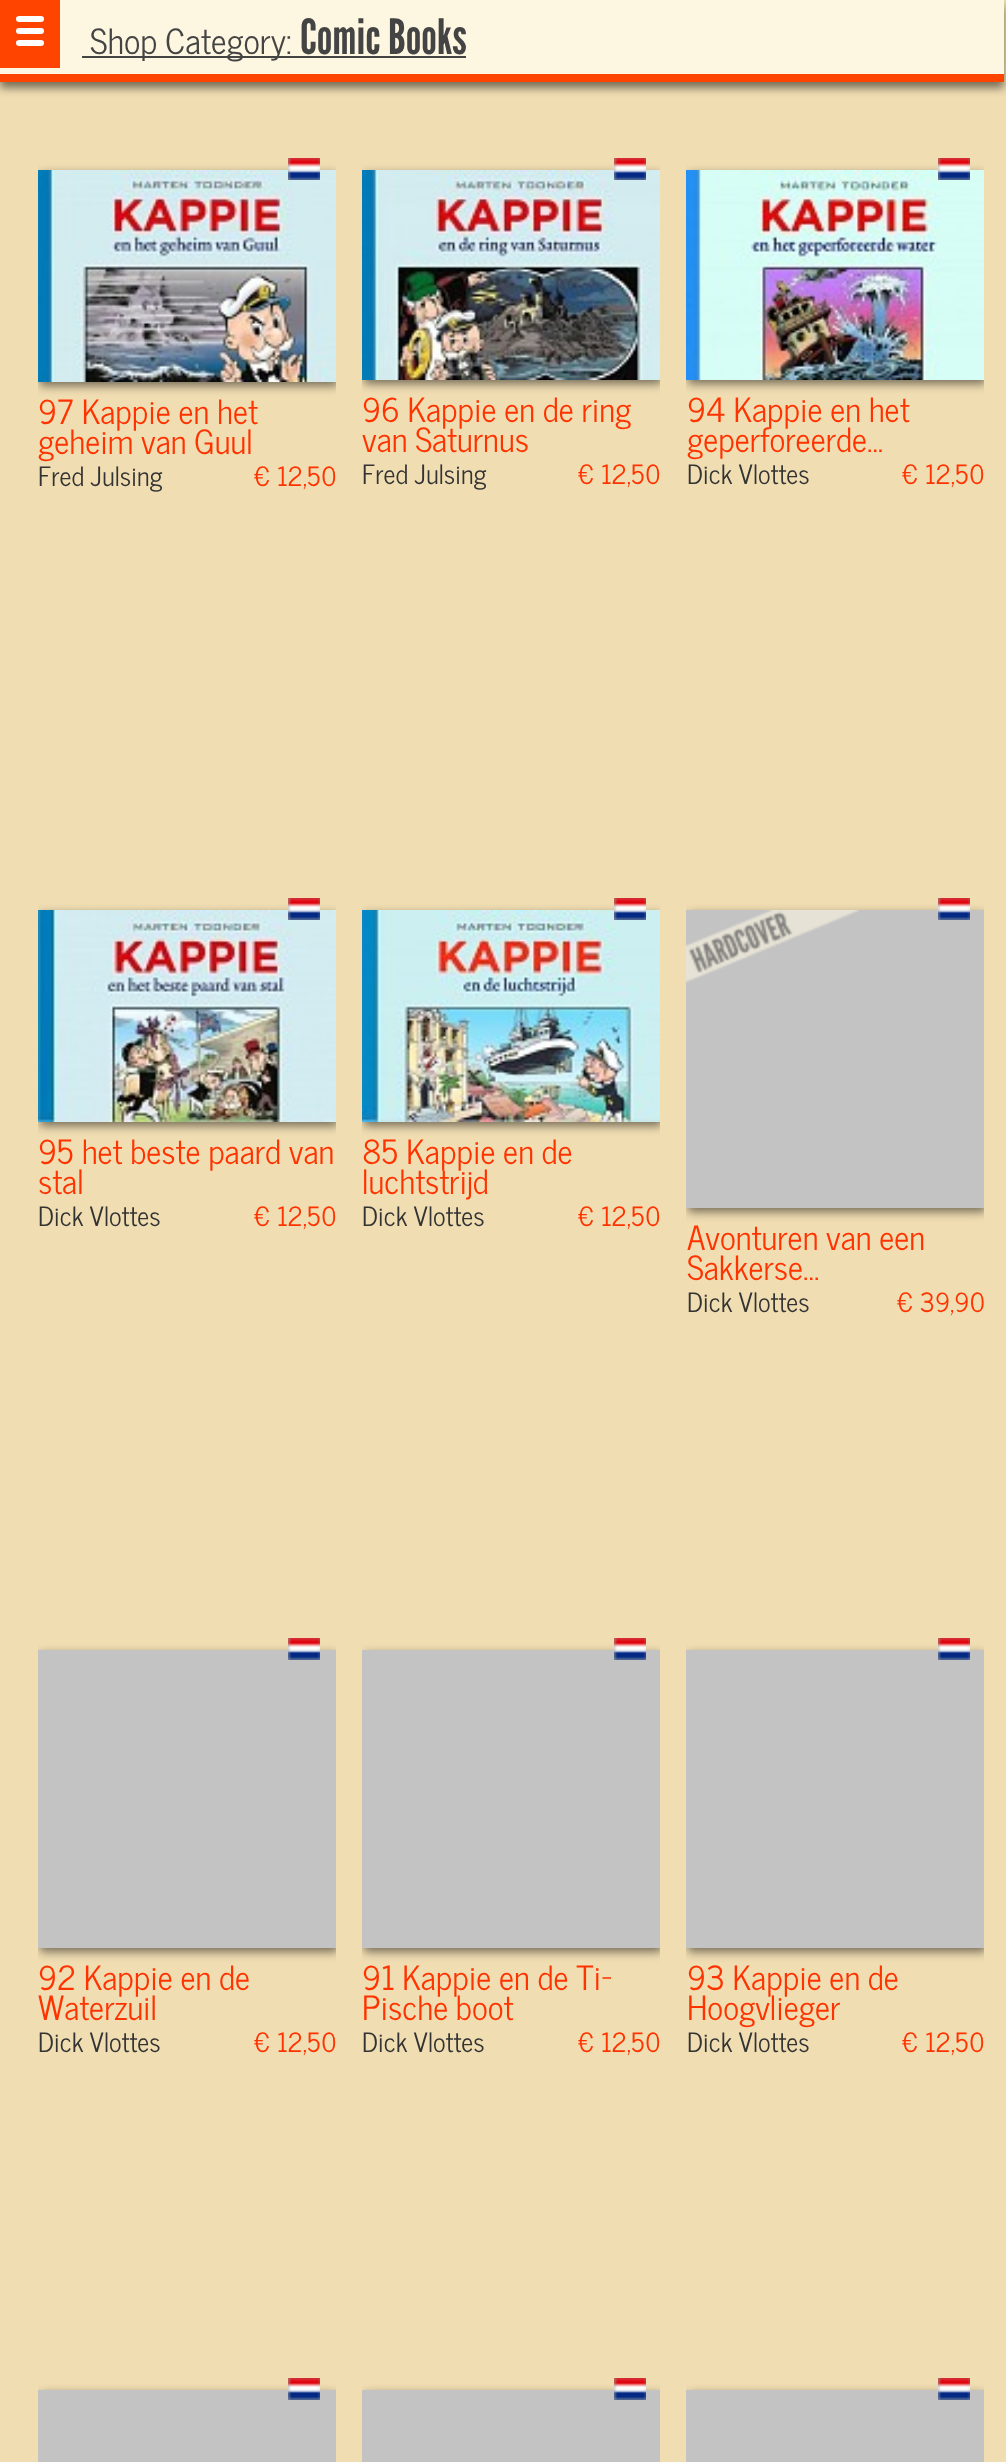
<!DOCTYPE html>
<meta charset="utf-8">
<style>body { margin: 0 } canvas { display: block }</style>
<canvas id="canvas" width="1006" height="2462"></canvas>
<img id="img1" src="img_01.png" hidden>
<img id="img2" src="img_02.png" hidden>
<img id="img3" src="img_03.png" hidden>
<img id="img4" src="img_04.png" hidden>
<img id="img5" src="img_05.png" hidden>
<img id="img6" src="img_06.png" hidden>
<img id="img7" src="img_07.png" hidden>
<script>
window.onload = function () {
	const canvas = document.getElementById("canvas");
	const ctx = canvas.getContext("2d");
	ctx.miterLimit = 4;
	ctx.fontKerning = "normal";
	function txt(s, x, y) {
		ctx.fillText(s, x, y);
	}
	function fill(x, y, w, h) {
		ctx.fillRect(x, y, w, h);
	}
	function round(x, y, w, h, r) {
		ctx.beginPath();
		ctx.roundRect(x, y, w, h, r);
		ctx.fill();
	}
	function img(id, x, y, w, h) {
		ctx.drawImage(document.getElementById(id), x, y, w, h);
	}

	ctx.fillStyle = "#F0DDB2";
	fill(0, 0, 1006, 2462);
	ctx.fillStyle = "#EDDBA9";
	fill(1004, 0, 2, 64);
	ctx.fillStyle = "rgba(0, 0, 0, 0.5)";
	ctx.filter = "blur(4px)";
	ctx.beginPath();
	ctx.rect(0, 6, 1004, 82);
	ctx.fill();
	ctx.filter = "none";
	ctx.fillStyle = "#FDF6E1";
	fill(0, 0, 1004, 74);
	ctx.fillStyle = "#FF4400";
	fill(0, 74, 1004, 8);
	fill(0, 0, 60, 68);
	ctx.fillStyle = "#FFFFFF";
	round(16, 16, 28, 6, 3);
	round(16, 28, 28, 6, 3);
	round(16, 40, 28, 6, 3);
	ctx.fillStyle = "#444444";
	fill(82, 56, 384, 2);
	ctx.save();
	ctx.beginPath();
	ctx.rect(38, 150, 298, 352);
	ctx.clip();
	ctx.fillStyle = "rgba(0, 0, 0, 0.5)";
	ctx.filter = "blur(5px)";
	ctx.beginPath();
	ctx.rect(40, 174, 298, 212);
	ctx.fill();
	ctx.filter = "none";
	ctx.restore();
	img("img1", 38, 170, 298, 212);
	img("img2", 288, 158, 32, 22);
	ctx.save();
	ctx.beginPath();
	ctx.rect(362, 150, 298, 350);
	ctx.clip();
	ctx.fillStyle = "rgba(0, 0, 0, 0.5)";
	ctx.filter = "blur(5px)";
	ctx.beginPath();
	ctx.rect(364, 174, 298, 210);
	ctx.fill();
	ctx.filter = "none";
	ctx.restore();
	img("img3", 362, 170, 298, 210);
	img("img2", 614, 158, 32, 22);
	ctx.save();
	ctx.beginPath();
	ctx.rect(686, 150, 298, 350);
	ctx.clip();
	ctx.fillStyle = "rgba(0, 0, 0, 0.5)";
	ctx.filter = "blur(5px)";
	ctx.beginPath();
	ctx.rect(688, 174, 298, 210);
	ctx.fill();
	ctx.filter = "none";
	ctx.restore();
	img("img4", 686, 170, 298, 210);
	img("img2", 938, 158, 32, 22);
	ctx.save();
	ctx.beginPath();
	ctx.rect(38, 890, 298, 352);
	ctx.clip();
	ctx.fillStyle = "rgba(0, 0, 0, 0.5)";
	ctx.filter = "blur(5px)";
	ctx.beginPath();
	ctx.rect(40, 914, 298, 212);
	ctx.fill();
	ctx.filter = "none";
	ctx.restore();
	img("img5", 38, 910, 298, 212);
	img("img2", 288, 898, 32, 22);
	ctx.save();
	ctx.beginPath();
	ctx.rect(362, 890, 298, 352);
	ctx.clip();
	ctx.fillStyle = "rgba(0, 0, 0, 0.5)";
	ctx.filter = "blur(5px)";
	ctx.beginPath();
	ctx.rect(364, 914, 298, 212);
	ctx.fill();
	ctx.filter = "none";
	ctx.restore();
	img("img6", 362, 910, 298, 212);
	img("img2", 614, 898, 32, 22);
	ctx.save();
	ctx.beginPath();
	ctx.rect(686, 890, 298, 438);
	ctx.clip();
	ctx.fillStyle = "rgba(0, 0, 0, 0.5)";
	ctx.filter = "blur(5px)";
	ctx.beginPath();
	ctx.rect(688, 914, 298, 298);
	ctx.fill();
	ctx.filter = "none";
	ctx.restore();
	ctx.fillStyle = "#C3C3C3";
	fill(686, 910, 298, 298);
	img("img7", 686, 910, 173, 73);
	img("img2", 938, 898, 32, 22);
	ctx.save();
	ctx.beginPath();
	ctx.rect(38, 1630, 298, 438);
	ctx.clip();
	ctx.fillStyle = "rgba(0, 0, 0, 0.5)";
	ctx.filter = "blur(5px)";
	ctx.beginPath();
	ctx.rect(40, 1654, 298, 298);
	ctx.fill();
	ctx.filter = "none";
	ctx.restore();
	fill(38, 1650, 298, 298);
	img("img2", 288, 1638, 32, 22);
	ctx.save();
	ctx.beginPath();
	ctx.rect(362, 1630, 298, 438);
	ctx.clip();
	ctx.fillStyle = "rgba(0, 0, 0, 0.5)";
	ctx.filter = "blur(5px)";
	ctx.beginPath();
	ctx.rect(364, 1654, 298, 298);
	ctx.fill();
	ctx.filter = "none";
	ctx.restore();
	fill(362, 1650, 298, 298);
	img("img2", 614, 1638, 32, 22);
	ctx.save();
	ctx.beginPath();
	ctx.rect(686, 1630, 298, 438);
	ctx.clip();
	ctx.fillStyle = "rgba(0, 0, 0, 0.5)";
	ctx.filter = "blur(5px)";
	ctx.beginPath();
	ctx.rect(688, 1654, 298, 298);
	ctx.fill();
	ctx.filter = "none";
	ctx.restore();
	fill(686, 1650, 298, 298);
	img("img2", 938, 1638, 32, 22);
	ctx.save();
	ctx.beginPath();
	ctx.rect(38, 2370, 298, 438);
	ctx.clip();
	ctx.fillStyle = "rgba(0, 0, 0, 0.5)";
	ctx.filter = "blur(5px)";
	ctx.beginPath();
	ctx.rect(40, 2394, 298, 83);
	ctx.fill();
	ctx.filter = "none";
	ctx.restore();
	fill(38, 2390, 298, 72);
	img("img2", 288, 2378, 32, 22);
	ctx.save();
	ctx.beginPath();
	ctx.rect(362, 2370, 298, 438);
	ctx.clip();
	ctx.fillStyle = "rgba(0, 0, 0, 0.5)";
	ctx.filter = "blur(5px)";
	ctx.beginPath();
	ctx.rect(364, 2394, 298, 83);
	ctx.fill();
	ctx.filter = "none";
	ctx.restore();
	fill(362, 2390, 298, 72);
	img("img2", 614, 2378, 32, 22);
	ctx.save();
	ctx.beginPath();
	ctx.rect(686, 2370, 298, 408);
	ctx.clip();
	ctx.fillStyle = "rgba(0, 0, 0, 0.5)";
	ctx.filter = "blur(5px)";
	ctx.beginPath();
	ctx.rect(688, 2394, 298, 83);
	ctx.fill();
	ctx.filter = "none";
	ctx.restore();
	fill(686, 2390, 298, 72);
	img("img2", 938, 2378, 32, 22);
	ctx.font = "500 34.5px News Cycle";
	ctx.fillStyle = "#444444";
	txt("Shop Category:", 90, 54);
	ctx.font = "48.5px League Gothic";
	txt("Comic Books", 300, 54);
	ctx.font = "500 33.25px News Cycle";
	ctx.fillStyle = "#FF3300";
	txt("97 Kappie en het", 38, 424);
	txt("geheim van Guul", 38, 454);
	ctx.font = "500 26.5px News Cycle";
	ctx.fillStyle = "#333333";
	txt("Fred Julsing", 38, 486);
	ctx.fillStyle = "#FF3300";
	txt("€ 12,50", 254, 486);
	ctx.font = "500 33.25px News Cycle";
	txt("96 Kappie en de ring", 362, 422);
	txt("van Saturnus", 362, 452);
	ctx.font = "500 26.5px News Cycle";
	ctx.fillStyle = "#333333";
	txt("Fred Julsing", 362, 484);
	ctx.fillStyle = "#FF3300";
	txt("€ 12,50", 578, 484);
	ctx.font = "500 33.25px News Cycle";
	txt("94 Kappie en het", 687, 422);
	txt("geperforeerde...", 687, 452);
	ctx.font = "500 26.5px News Cycle";
	ctx.fillStyle = "#333333";
	txt("Dick Vlottes", 687, 484);
	ctx.fillStyle = "#FF3300";
	txt("€ 12,50", 902, 484);
	ctx.font = "500 33.25px News Cycle";
	txt("95 het beste paard van", 38, 1164);
	txt("stal", 38, 1194);
	ctx.font = "500 26.5px News Cycle";
	ctx.fillStyle = "#333333";
	txt("Dick Vlottes", 38, 1226);
	ctx.fillStyle = "#FF3300";
	txt("€ 12,50", 254, 1226);
	ctx.font = "500 33.25px News Cycle";
	txt("85 Kappie en de", 362, 1164);
	txt("luchtstrijd", 362, 1194);
	ctx.font = "500 26.5px News Cycle";
	ctx.fillStyle = "#333333";
	txt("Dick Vlottes", 362, 1226);
	ctx.fillStyle = "#FF3300";
	txt("€ 12,50", 578, 1226);
	ctx.font = "500 33.25px News Cycle";
	txt("Avonturen van een", 687, 1250);
	txt("Sakkerse...", 687, 1280);
	ctx.font = "500 26.5px News Cycle";
	ctx.fillStyle = "#333333";
	txt("Dick Vlottes", 687, 1312);
	ctx.fillStyle = "#FF3300";
	txt("€ 39,90", 897, 1312);
	ctx.font = "500 33.25px News Cycle";
	txt("92 Kappie en de", 38, 1990);
	txt("Waterzuil", 38, 2020);
	ctx.font = "500 26.5px News Cycle";
	ctx.fillStyle = "#333333";
	txt("Dick Vlottes", 38, 2052);
	ctx.fillStyle = "#FF3300";
	txt("€ 12,50", 254, 2052);
	ctx.font = "500 33.25px News Cycle";
	txt("91 Kappie en de Ti-", 362, 1990);
	txt("Pische boot", 362, 2020);
	ctx.font = "500 26.5px News Cycle";
	ctx.fillStyle = "#333333";
	txt("Dick Vlottes", 362, 2052);
	ctx.fillStyle = "#FF3300";
	txt("€ 12,50", 578, 2052);
	ctx.font = "500 33.25px News Cycle";
	txt("93 Kappie en de", 687, 1990);
	txt("Hoogvlieger", 687, 2020);
	ctx.font = "500 26.5px News Cycle";
	ctx.fillStyle = "#333333";
	txt("Dick Vlottes", 687, 2052);
	ctx.fillStyle = "#FF3300";
	txt("€ 12,50", 902, 2052);
};
</script>
